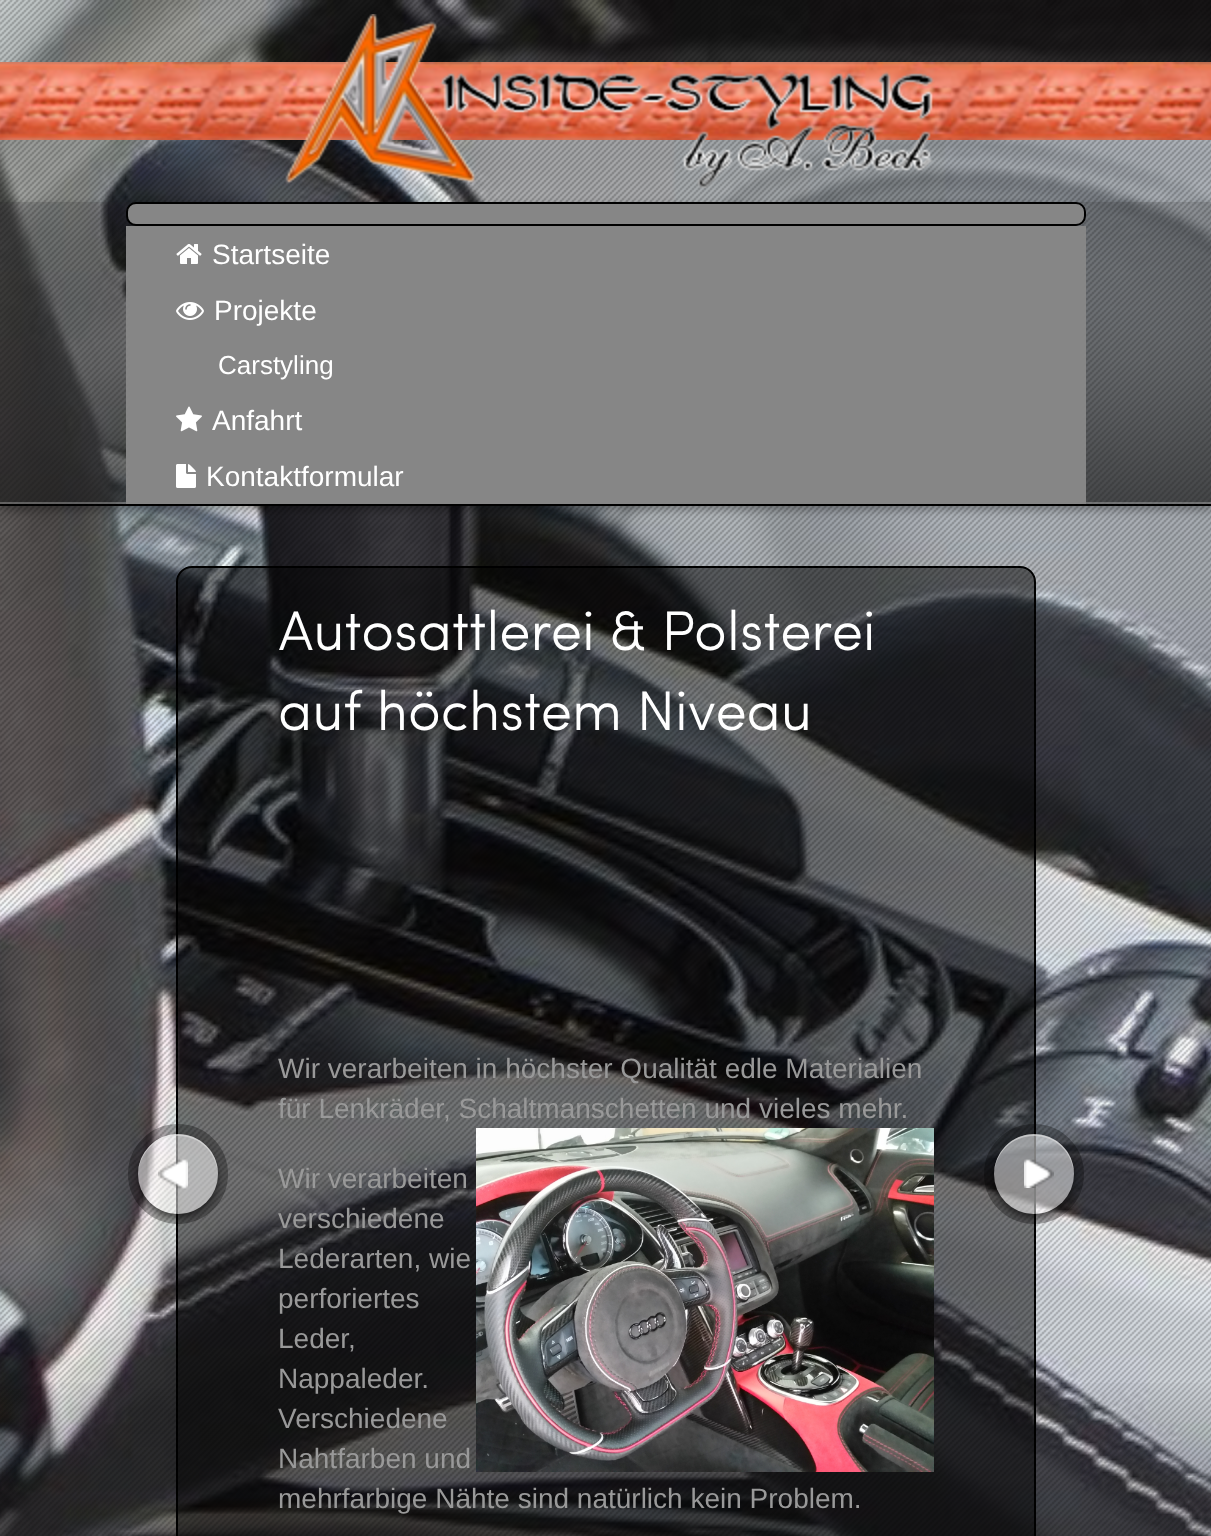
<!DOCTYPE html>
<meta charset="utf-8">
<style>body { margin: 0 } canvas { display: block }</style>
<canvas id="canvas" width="1211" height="1536"></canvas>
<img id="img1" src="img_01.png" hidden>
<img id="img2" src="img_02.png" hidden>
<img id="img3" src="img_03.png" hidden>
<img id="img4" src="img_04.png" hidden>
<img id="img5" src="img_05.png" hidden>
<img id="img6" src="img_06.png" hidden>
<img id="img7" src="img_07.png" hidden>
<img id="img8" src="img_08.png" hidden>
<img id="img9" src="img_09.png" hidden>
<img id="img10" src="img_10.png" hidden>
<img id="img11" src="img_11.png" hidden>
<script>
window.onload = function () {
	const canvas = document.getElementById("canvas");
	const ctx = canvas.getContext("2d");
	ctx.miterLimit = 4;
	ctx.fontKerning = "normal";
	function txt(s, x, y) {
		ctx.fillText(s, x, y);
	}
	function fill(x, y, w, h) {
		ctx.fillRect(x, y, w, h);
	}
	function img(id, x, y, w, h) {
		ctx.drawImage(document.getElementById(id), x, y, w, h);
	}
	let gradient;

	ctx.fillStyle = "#FFFFFF";
	fill(0, 0, 1211, 1536);
	img("img1", 0, 0, 1211, 1536);
	img("img2", 0, 0, 1211, 1536);
	img("img3", 0, 62, 1211, 78);
	img("img4", 285, 14, 650, 174);
	ctx.save();
	ctx.beginPath();
	ctx.moveTo(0, 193);
	ctx.lineTo(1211, 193);
	ctx.lineTo(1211, 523);
	ctx.lineTo(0, 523);
	ctx.closePath();
	ctx.moveTo(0, 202);
	ctx.lineTo(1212, 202);
	ctx.lineTo(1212, 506);
	ctx.lineTo(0, 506);
	ctx.closePath();
	ctx.clip("evenodd");
	ctx.fillStyle = "rgba(0, 0, 0, 0.3)";
	ctx.filter = "blur(4px)";
	ctx.beginPath();
	ctx.rect(0, 206, 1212, 304);
	ctx.fill();
	ctx.filter = "none";
	ctx.restore();
	gradient = ctx.createLinearGradient(606, 202, 606, 504);
	gradient.addColorStop(0, "rgba(27, 27, 27, 0.2)");
	gradient.addColorStop(1, "rgba(27, 27, 27, 0.7)");
	ctx.fillStyle = gradient;
	fill(0, 202, 1211, 302);
	ctx.fillStyle = "rgba(225, 225, 225, 0.3)";
	fill(0, 502, 1211, 2);
	ctx.fillStyle = "#000000";
	fill(0, 504, 1211, 2);
	ctx.fillStyle = "#868686";
	ctx.beginPath();
	ctx.roundRect(127, 203, 958, 22, 9);
	ctx.fill();
	ctx.strokeStyle = "#000000";
	ctx.lineWidth = 2;
	ctx.stroke();
	fill(126, 226, 960, 278);
	img("img5", 176, 244, 26, 20);
	img("img6", 176, 302, 28, 18);
	img("img7", 176, 406, 26, 26);
	img("img8", 176, 464, 20, 24);
	gradient = ctx.createLinearGradient(606, 1372, 606, 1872);
	gradient.addColorStop(0, "rgba(34, 34, 34, 0)");
	gradient.addColorStop(1, "#222222");
	ctx.fillStyle = gradient;
	fill(0, 1383, 1211, 153);
	ctx.fillStyle = "rgba(0, 0, 0, 0.5)";
	ctx.beginPath();
	ctx.roundRect(177, 567, 858, 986, 15);
	ctx.fill();
	ctx.stroke();
	img("img9", 476, 1128, 458, 344);
	ctx.save();
	ctx.beginPath();
	ctx.moveTo(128, 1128);
	ctx.lineTo(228, 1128);
	ctx.lineTo(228, 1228);
	ctx.lineTo(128, 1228);
	ctx.closePath();
	ctx.moveTo(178, 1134);
	ctx.bezierCurveTo(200, 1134, 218, 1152, 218, 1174);
	ctx.bezierCurveTo(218, 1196, 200, 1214, 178, 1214);
	ctx.bezierCurveTo(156, 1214, 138, 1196, 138, 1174);
	ctx.bezierCurveTo(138, 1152, 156, 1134, 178, 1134);
	ctx.closePath();
	ctx.clip("evenodd");
	ctx.filter = "blur(3px)";
	ctx.beginPath();
	ctx.roundRect(138, 1138, 80, 80, 40);
	ctx.fill();
	ctx.filter = "none";
	ctx.restore();
	ctx.beginPath();
	ctx.arc(178, 1174, 45, 0, Math.PI * 2);
	ctx.strokeStyle = "rgba(0, 0, 0, 0.3)";
	ctx.lineWidth = 10;
	ctx.stroke();
	ctx.fillStyle = "rgba(255, 255, 255, 0.5)";
	ctx.beginPath();
	ctx.arc(178, 1174, 40, 0, Math.PI * 2);
	ctx.fill();
	img("img10", 158, 1159, 30, 30);
	ctx.fillStyle = "rgba(225, 225, 225, 0.6)";
	ctx.beginPath();
	ctx.moveTo(178, 1136);
	ctx.bezierCurveTo(200, 1136, 217, 1153, 218, 1175);
	ctx.bezierCurveTo(219, 1135, 167, 1119, 145, 1152);
	ctx.bezierCurveTo(140, 1159, 138, 1167, 138, 1175);
	ctx.bezierCurveTo(139, 1153, 156, 1136, 178, 1136);
	ctx.closePath();
	ctx.fill();
	ctx.save();
	ctx.beginPath();
	ctx.moveTo(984, 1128);
	ctx.lineTo(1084, 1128);
	ctx.lineTo(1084, 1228);
	ctx.lineTo(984, 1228);
	ctx.closePath();
	ctx.moveTo(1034, 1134);
	ctx.bezierCurveTo(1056, 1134, 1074, 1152, 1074, 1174);
	ctx.bezierCurveTo(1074, 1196, 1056, 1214, 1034, 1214);
	ctx.bezierCurveTo(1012, 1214, 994, 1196, 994, 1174);
	ctx.bezierCurveTo(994, 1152, 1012, 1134, 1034, 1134);
	ctx.closePath();
	ctx.clip("evenodd");
	ctx.fillStyle = "rgba(0, 0, 0, 0.5)";
	ctx.filter = "blur(3px)";
	ctx.beginPath();
	ctx.roundRect(994, 1138, 80, 80, 40);
	ctx.fill();
	ctx.filter = "none";
	ctx.restore();
	ctx.beginPath();
	ctx.arc(1034, 1174, 45, 0, Math.PI * 2);
	ctx.stroke();
	ctx.fillStyle = "rgba(255, 255, 255, 0.5)";
	ctx.beginPath();
	ctx.arc(1034, 1174, 40, 0, Math.PI * 2);
	ctx.fill();
	img("img11", 1024, 1159, 30, 29);
	ctx.fillStyle = "rgba(225, 225, 225, 0.6)";
	ctx.beginPath();
	ctx.moveTo(1034, 1136);
	ctx.bezierCurveTo(1056, 1136, 1073, 1153, 1074, 1175);
	ctx.bezierCurveTo(1075, 1135, 1023, 1119, 1001, 1152);
	ctx.bezierCurveTo(996, 1159, 994, 1167, 994, 1175);
	ctx.bezierCurveTo(995, 1153, 1012, 1136, 1034, 1136);
	ctx.closePath();
	ctx.fill();
	ctx.font = "28px Liberation Sans";
	ctx.fillStyle = "#FFFFFF";
	txt("Startseite", 212, 264);
	txt("Projekte", 214, 320);
	ctx.font = "26px Liberation Sans";
	txt("Carstyling", 218, 374);
	ctx.font = "28px Liberation Sans";
	txt("Anfahrt", 212, 430);
	txt("Kontaktformular", 206, 486);
	ctx.font = "56px Sofia";
	txt("Autosattlerei & Polsterei", 278, 650);
	txt("auf höchstem Niveau", 278, 730);
	ctx.font = "28px Liberation Sans";
	ctx.fillStyle = "#999999";
	txt("Wir verarbeiten in höchster Qualität edle Materialien", 278, 1078);
	txt("für Lenkräder, Schaltmanschetten und vieles mehr.", 278, 1118);
	txt("Wir verarbeiten", 278, 1188);
	txt("verschiedene", 278, 1228);
	txt("Lederarten, wie", 278, 1268);
	txt("perforiertes", 278, 1308);
	txt("Leder,", 278, 1348);
	txt("Nappaleder.", 278, 1388);
	txt("Verschiedene", 278, 1428);
	txt("Nahtfarben und", 278, 1468);
	txt("mehrfarbige Nähte sind natürlich kein Problem.", 278, 1508);
};
</script>
